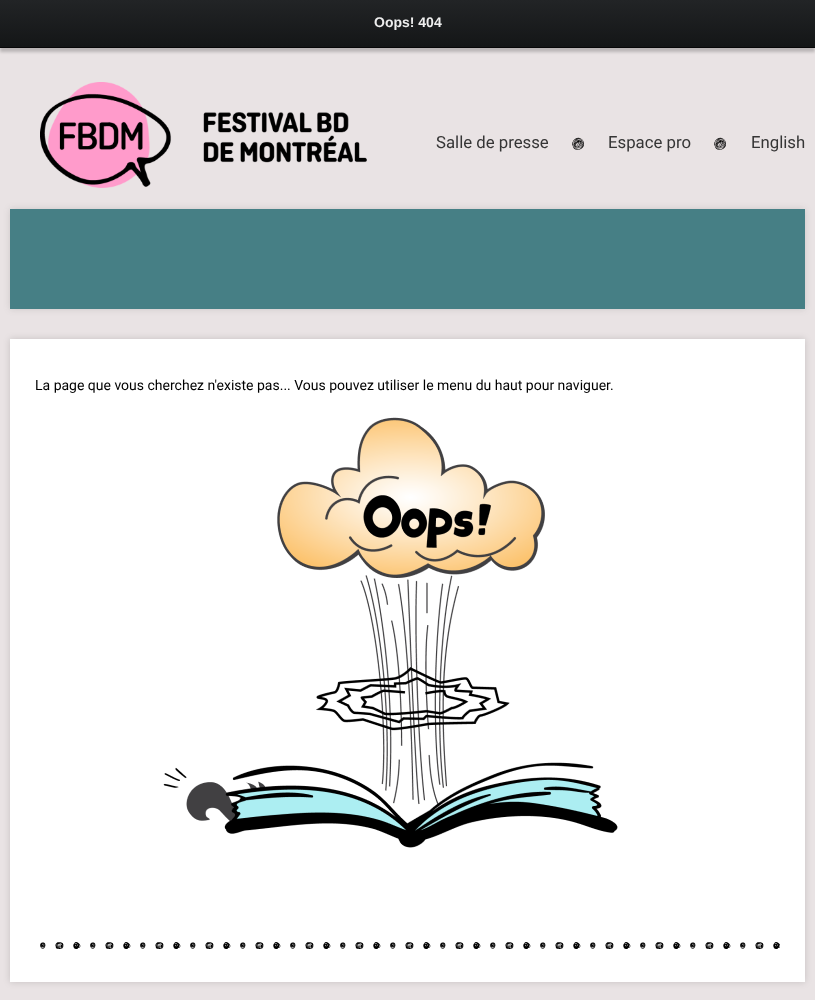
<!DOCTYPE html>
<meta charset="utf-8">
<style>body { margin: 0 } canvas { display: block }</style>
<canvas id="canvas" width="815" height="1000"></canvas>
<img id="img1" src="img_01.png" hidden>
<img id="img2" src="img_02.png" hidden>
<img id="img3" src="img_03.png" hidden>
<img id="img4" src="img_04.png" hidden>
<script>
window.onload = function () {
	const canvas = document.getElementById("canvas");
	const ctx = canvas.getContext("2d");
	ctx.miterLimit = 4;
	ctx.fontKerning = "normal";
	function txt(s, x, y) {
		ctx.fillText(s, x, y);
	}
	function fill(x, y, w, h) {
		ctx.fillRect(x, y, w, h);
	}
	function img(id, x, y, w, h) {
		ctx.drawImage(document.getElementById(id), x, y, w, h);
	}
	let gradient;

	ctx.fillStyle = "#E9E3E4";
	fill(0, 0, 815, 1000);
	ctx.fillStyle = "rgba(0, 0, 0, 0.2)";
	ctx.filter = "blur(1.5px)";
	ctx.beginPath();
	ctx.rect(0, 4, 815, 48);
	ctx.fill();
	ctx.filter = "none";
	gradient = ctx.createLinearGradient(0, 47, 0, 0);
	gradient.addColorStop(0.01, "#141617");
	gradient.addColorStop(1, "#222426");
	ctx.fillStyle = gradient;
	fill(0, 0, 815, 47);
	ctx.fillStyle = "#070708";
	fill(0, 47, 815, 1);
	img("img1", 40, 82, 327, 106);
	img("img2", 572, 137, 12, 13);
	img("img2", 714, 137, 12, 13);
	ctx.fillStyle = "rgba(47, 45, 46, 0.15)";
	ctx.filter = "blur(3.5px)";
	ctx.beginPath();
	ctx.rect(10, 209, 795, 100);
	ctx.fill();
	ctx.filter = "none";
	ctx.fillStyle = "#467F85";
	fill(10, 209, 795, 100);
	ctx.fillStyle = "rgba(0, 0, 0, 0.15)";
	ctx.filter = "blur(3.5px)";
	ctx.beginPath();
	ctx.rect(10, 339, 795, 643);
	ctx.fill();
	ctx.filter = "none";
	ctx.fillStyle = "#FFFFFF";
	fill(10, 339, 795, 643);
	img("img3", 163, 417, 455, 431);
	img("img4", 40, 942, 740, 7);
	ctx.font = "bold 14px Liberation Sans";
	ctx.fillStyle = "#EEEEEE";
	txt("Oops! 404", 374, 27);
	ctx.font = "16.75px Roboto";
	ctx.fillStyle = "#353535";
	txt("Salle de presse", 436, 148);
	txt("Espace pro", 608, 148);
	txt("English", 751, 148);
	ctx.font = "14px Roboto";
	ctx.fillStyle = "#000000";
	txt("La page que vous cherchez n'existe pas... Vous pouvez utiliser le menu du haut pour naviguer.", 35, 390);
};
</script>
